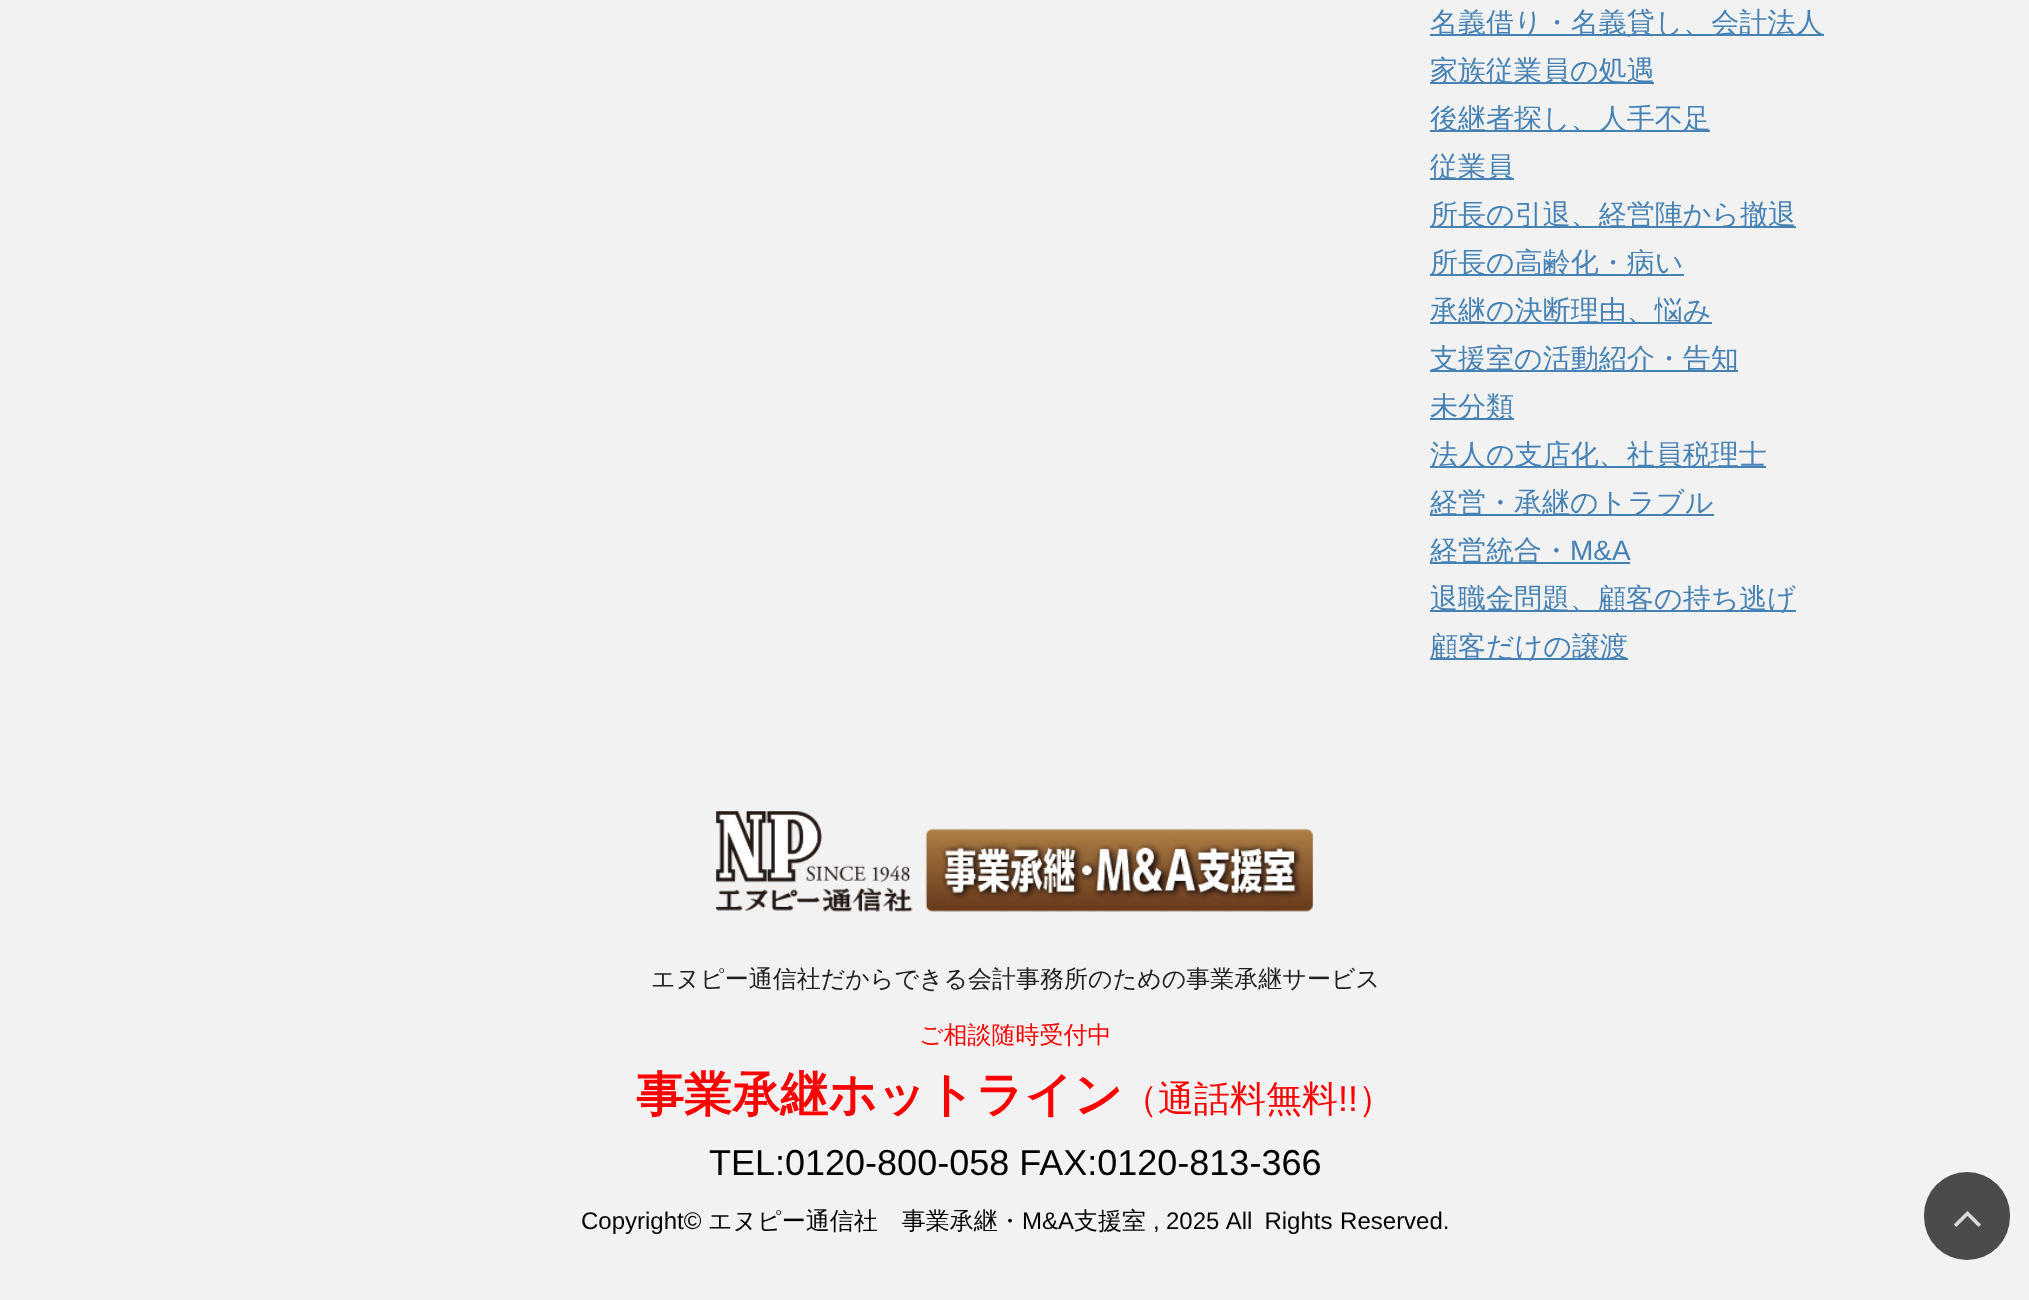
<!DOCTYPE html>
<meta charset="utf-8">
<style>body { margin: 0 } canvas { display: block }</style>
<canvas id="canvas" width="2029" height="1300"></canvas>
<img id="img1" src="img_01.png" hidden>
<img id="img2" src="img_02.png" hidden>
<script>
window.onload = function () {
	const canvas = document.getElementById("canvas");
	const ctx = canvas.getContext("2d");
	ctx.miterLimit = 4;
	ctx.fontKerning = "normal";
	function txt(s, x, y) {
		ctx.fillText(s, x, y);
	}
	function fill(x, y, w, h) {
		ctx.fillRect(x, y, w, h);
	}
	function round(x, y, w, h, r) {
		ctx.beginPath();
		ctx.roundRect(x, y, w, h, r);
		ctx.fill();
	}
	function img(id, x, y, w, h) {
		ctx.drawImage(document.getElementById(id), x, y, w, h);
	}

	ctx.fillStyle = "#F2F2F2";
	fill(0, 0, 2029, 1300);
	ctx.fillStyle = "#4682B4";
	fill(1430, 34, 394, 2);
	fill(1430, 82, 224, 2);
	fill(1430, 130, 280, 2);
	fill(1430, 178, 84, 2);
	fill(1430, 226, 366, 2);
	fill(1430, 274, 254, 2);
	fill(1430, 322, 282, 2);
	fill(1430, 370, 308, 2);
	fill(1430, 418, 84, 2);
	fill(1430, 466, 336, 2);
	fill(1430, 514, 284, 2);
	fill(1430, 562, 200, 2);
	fill(1430, 610, 366, 2);
	fill(1430, 658, 198, 2);
	img("img1", 716, 811, 597, 101);
	ctx.fillStyle = "#4B4B4B";
	round(1924, 1172, 86, 88, 43);
	img("img2", 1954, 1211, 27, 16);
	ctx.font = "500 28px WenQuanYi Zen Hei";
	ctx.fillStyle = "#4682B4";
	txt("名義借り・名義貸し、会計法人", 1430, 32);
	txt("家族従業員の処遇", 1430, 80);
	txt("後継者探し、人手不足", 1430, 128);
	txt("従業員", 1430, 176);
	txt("所長の引退、経営陣から撤退", 1430, 224);
	txt("所長の高齢化・病い", 1430, 272);
	txt("承継の決断理由、悩み", 1430, 320);
	txt("支援室の活動紹介・告知", 1430, 368);
	txt("未分類", 1430, 416);
	txt("法人の支店化、社員税理士", 1430, 464);
	txt("経営・承継のトラブル", 1430, 512);
	txt("経営統合・", 1430, 560);
	ctx.font = "28px Liberation Sans";
	txt("M&A", 1570, 560);
	ctx.font = "500 28px WenQuanYi Zen Hei";
	txt("退職金問題、顧客の持ち逃げ", 1430, 608);
	txt("顧客だけの譲渡", 1430, 656);
	ctx.font = "500 24px WenQuanYi Zen Hei";
	ctx.fillStyle = "#212121";
	txt("エヌピー通信社だからできる会計事務所のための事業承継サービス", 651, 987);
	ctx.fillStyle = "#FF0000";
	txt("ご相談随時受付中", 919, 1043);
	ctx.font = "bold 48px WenQuanYi Zen Hei";
	txt("事業承継ホットライン", 636, 1111);
	ctx.font = "500 36px WenQuanYi Zen Hei";
	txt("（通話料無料", 1122, 1111);
	ctx.font = "36px Liberation Sans";
	txt("!!", 1338, 1111);
	ctx.font = "500 36px WenQuanYi Zen Hei";
	txt("）", 1358, 1111);
	ctx.font = "36px Liberation Sans";
	ctx.fillStyle = "#000000";
	txt("TEL:0120-800-058 FAX:0120-813-366", 709, 1175);
	ctx.font = "24px Liberation Sans";
	txt("Copyright©", 581, 1229);
	ctx.font = "500 24px WenQuanYi Zen Hei";
	txt("エヌピー通信社　事業承継・", 708, 1229);
	ctx.font = "24px Liberation Sans";
	txt("M&A", 1022, 1229);
	ctx.font = "500 24px WenQuanYi Zen Hei";
	txt("支援室", 1074, 1229);
	ctx.font = "24px Liberation Sans";
	txt(",", 1153, 1229);
	ctx.wordSpacing = "1px";
	txt("2025 All Rights Reserved.", 1166, 1229);
};
</script>
